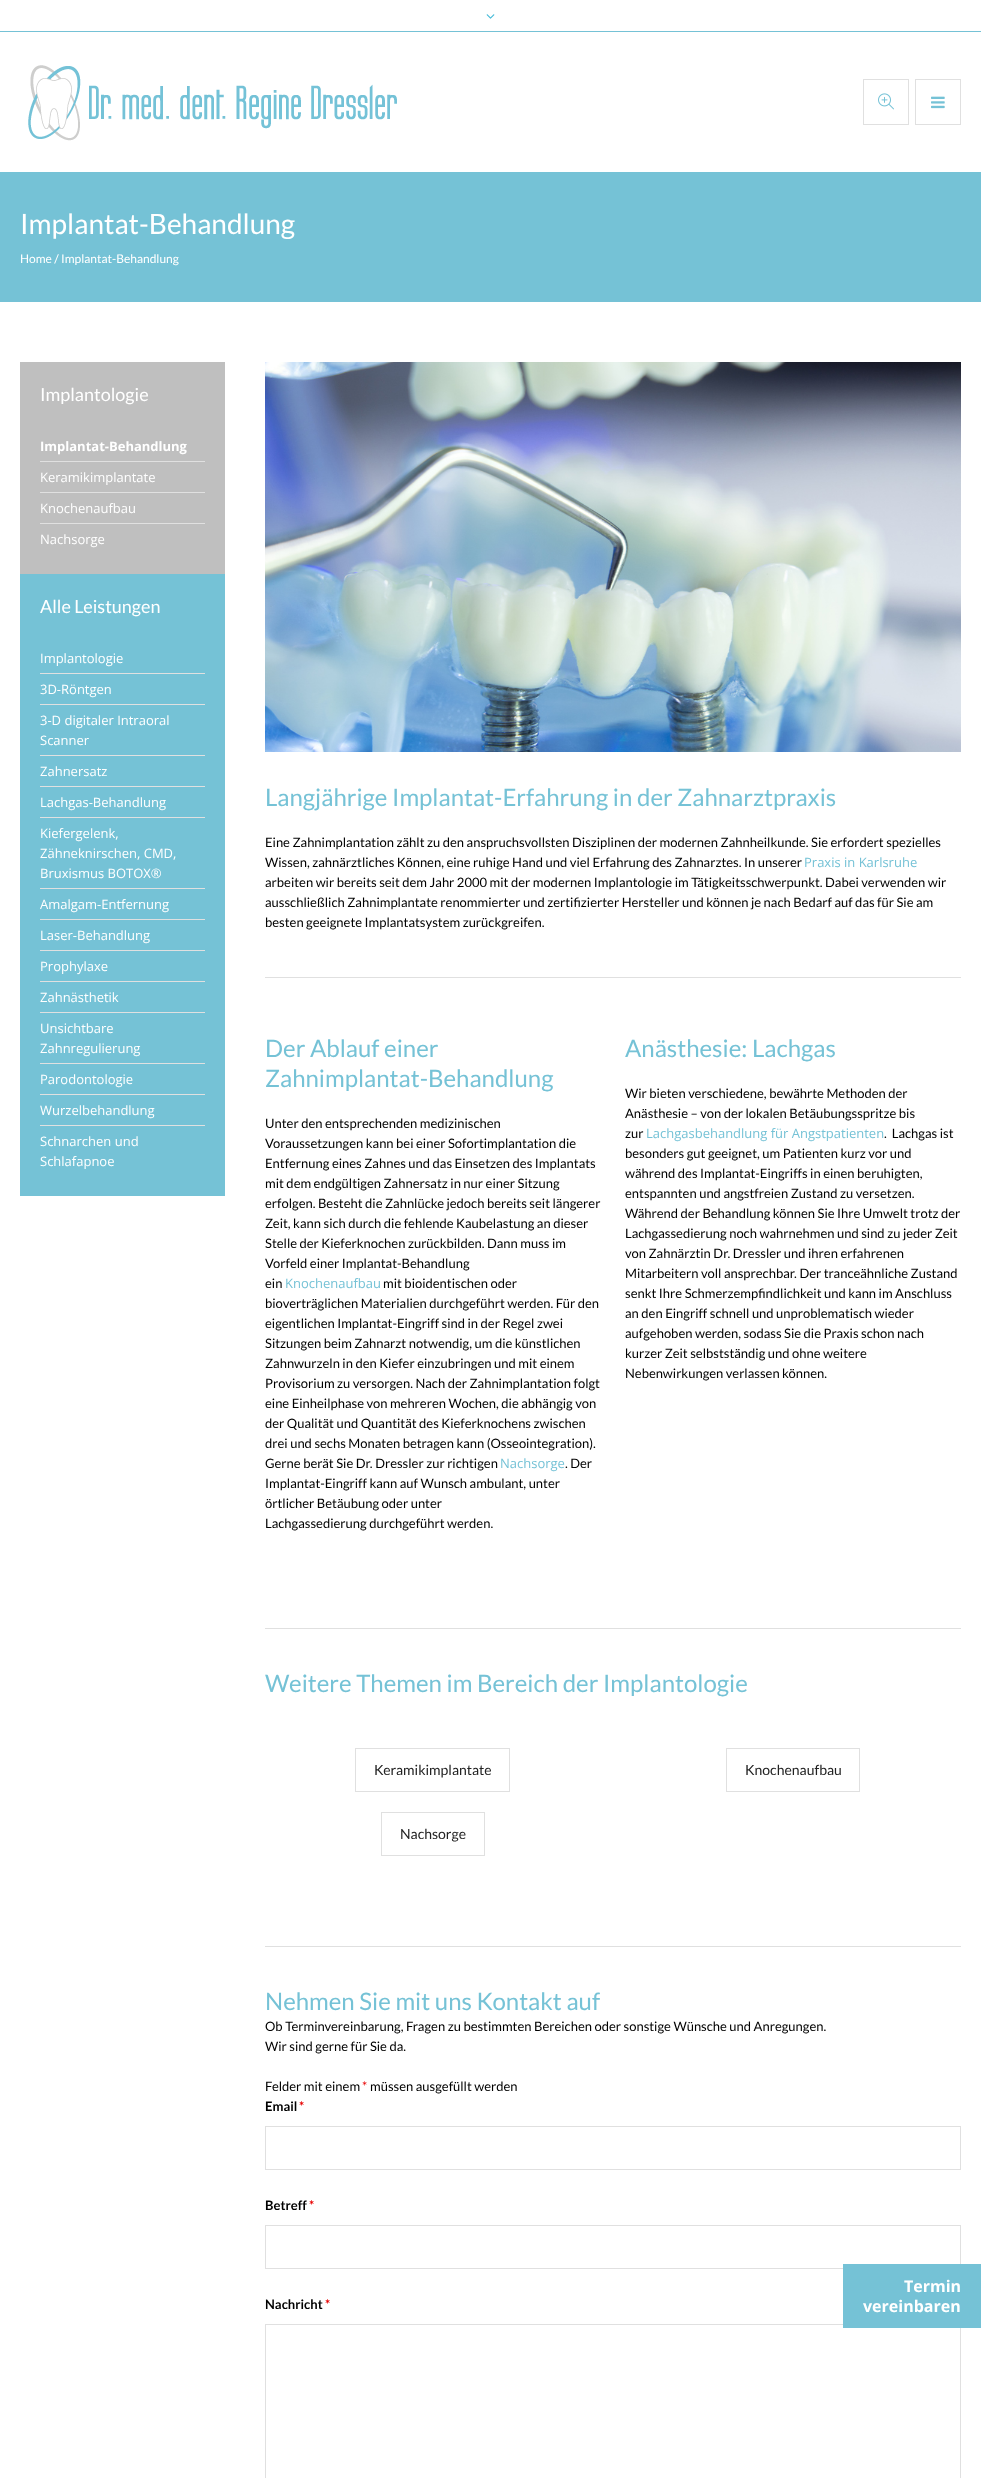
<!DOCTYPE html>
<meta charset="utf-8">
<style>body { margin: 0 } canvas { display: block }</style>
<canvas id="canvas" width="981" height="2478"></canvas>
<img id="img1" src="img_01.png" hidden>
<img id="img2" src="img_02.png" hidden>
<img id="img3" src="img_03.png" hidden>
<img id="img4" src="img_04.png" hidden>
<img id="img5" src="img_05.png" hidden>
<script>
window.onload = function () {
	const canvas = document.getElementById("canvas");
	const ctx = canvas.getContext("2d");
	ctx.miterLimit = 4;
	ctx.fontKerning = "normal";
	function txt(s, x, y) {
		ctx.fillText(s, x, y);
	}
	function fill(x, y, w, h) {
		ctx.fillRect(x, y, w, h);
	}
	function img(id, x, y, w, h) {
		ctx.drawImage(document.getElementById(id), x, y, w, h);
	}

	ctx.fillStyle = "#FFFFFF";
	fill(0, 0, 981, 2478);
	ctx.fillStyle = "#75C2D6";
	fill(0, 31, 981, 1);
	img("img1", 486, 14, 9, 5);
	img("img2", 28, 65, 369, 76);
	ctx.strokeStyle = "#E0E0E0";
	ctx.strokeRect(863.5, 79.5, 45, 45);
	img("img3", 878, 93, 16, 17);
	ctx.strokeRect(915.5, 79.5, 45, 45);
	img("img4", 931, 96, 14, 13);
	fill(0, 172, 981, 130);
	ctx.fillStyle = "#BFBFBF";
	fill(20, 362, 205, 212);
	ctx.fillStyle = "#E0E0E0";
	fill(40, 461, 165, 1);
	fill(40, 492, 165, 1);
	fill(40, 523, 165, 1);
	ctx.fillStyle = "#75C2D6";
	fill(20, 574, 205, 622);
	ctx.fillStyle = "#E0E0E0";
	fill(40, 673, 165, 1);
	fill(40, 704, 165, 1);
	fill(40, 755, 165, 1);
	fill(40, 786, 165, 1);
	fill(40, 817, 165, 1);
	fill(40, 888, 165, 1);
	fill(40, 919, 165, 1);
	fill(40, 950, 165, 1);
	fill(40, 981, 165, 1);
	fill(40, 1012, 165, 1);
	fill(40, 1063, 165, 1);
	fill(40, 1094, 165, 1);
	fill(40, 1125, 165, 1);
	img("img5", 265, 362, 696, 390);
	fill(265, 977, 696, 1);
	fill(265, 1628, 696, 1);
	ctx.strokeRect(355.5, 1748.5, 154, 43);
	ctx.strokeRect(726.5, 1748.5, 133, 43);
	ctx.strokeRect(381.5, 1812.5, 103, 43);
	fill(265, 1946, 696, 1);
	ctx.strokeRect(265.5, 2126.5, 695, 43);
	ctx.strokeRect(265.5, 2225.5, 695, 43);
	ctx.strokeRect(265.5, 2324.5, 695, 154);
	ctx.fillStyle = "#75C2D6";
	fill(843, 2264, 138, 64);
	ctx.font = "28px Lato";
	ctx.fillStyle = "#FFFFFF";
	txt("Implantat-Behandlung", 20, 234);
	ctx.font = "12px Lato";
	txt("Home / Implantat-Behandlung", 20, 263);
	ctx.font = "18px Lato";
	txt("Implantologie", 40, 401);
	ctx.font = "bold 13px Open Sans";
	txt("Implantat-Behandlung", 40, 451);
	ctx.font = "13px Open Sans";
	txt("Keramikimplantate", 40, 482);
	txt("Knochenaufbau", 40, 513);
	txt("Nachsorge", 40, 544);
	ctx.font = "18px Lato";
	txt("Alle Leistungen", 40, 613);
	ctx.font = "13px Open Sans";
	txt("Implantologie", 40, 663);
	txt("3D-Röntgen", 40, 694);
	txt("3-D digitaler Intraoral", 40, 725);
	txt("Scanner", 40, 745);
	txt("Zahnersatz", 40, 776);
	txt("Lachgas-Behandlung", 40, 807);
	txt("Kiefergelenk,", 40, 838);
	txt("Zähneknirschen, CMD,", 40, 858);
	txt("Bruxismus BOTOX®", 40, 878);
	txt("Amalgam-Entfernung", 40, 909);
	txt("Laser-Behandlung", 40, 940);
	txt("Prophylaxe", 40, 971);
	txt("Zahnästhetik", 40, 1002);
	txt("Unsichtbare", 40, 1033);
	txt("Zahnregulierung", 40, 1053);
	txt("Parodontologie", 40, 1084);
	txt("Wurzelbehandlung", 40, 1115);
	txt("Schnarchen und", 40, 1146);
	txt("Schlafapnoe", 40, 1166);
	ctx.font = "24px Lato";
	ctx.fillStyle = "#75C2D6";
	txt("Langjährige Implantat-Erfahrung in der Zahnarztpraxis", 265, 806);
	ctx.font = "13px Lato";
	ctx.fillStyle = "#000000";
	txt("Eine Zahnimplantation zählt zu den anspruchsvollsten Disziplinen der modernen Zahnheilkunde. Sie erfordert spezielles", 265, 847);
	txt("Wissen, zahnärztliches Können, eine ruhige Hand und viel Erfahrung des Zahnarztes. In unserer", 265, 867);
	ctx.font = "13px Open Sans";
	ctx.fillStyle = "#75C2D6";
	txt("Praxis in Karlsruhe", 804, 867);
	ctx.font = "13px Lato";
	ctx.fillStyle = "#000000";
	txt("arbeiten wir bereits seit dem Jahr 2000 mit der modernen Implantologie im Tätigkeitsschwerpunkt. Dabei verwenden wir", 265, 887);
	txt("ausschließlich Zahnimplantate renommierter und zertifizierter Hersteller und können je nach Bedarf auf das für Sie am", 265, 907);
	txt("besten geeignete Implantatsystem zurückgreifen.", 265, 927);
	ctx.font = "24px Lato";
	ctx.fillStyle = "#75C2D6";
	txt("Der Ablauf einer", 265, 1057);
	txt("Zahnimplantat-Behandlung", 265, 1087);
	ctx.font = "13px Lato";
	ctx.fillStyle = "#000000";
	txt("Unter den entsprechenden medizinischen", 265, 1128);
	txt("Voraussetzungen kann bei einer Sofortimplantation die", 265, 1148);
	txt("Entfernung eines Zahnes und das Einsetzen des Implantats", 265, 1168);
	txt("mit dem endgültigen Zahnersatz in nur einer Sitzung", 265, 1188);
	txt("erfolgen. Besteht die Zahnlücke jedoch bereits seit längerer", 265, 1208);
	txt("Zeit, kann sich durch die fehlende Kaubelastung an dieser", 265, 1228);
	txt("Stelle der Kieferknochen zurückbilden. Dann muss im", 265, 1248);
	txt("Vorfeld einer Implantat-Behandlung", 265, 1268);
	txt("ein", 265, 1288);
	ctx.font = "13px Open Sans";
	ctx.fillStyle = "#75C2D6";
	txt("Knochenaufbau", 285, 1288);
	ctx.font = "13px Lato";
	ctx.fillStyle = "#000000";
	txt("mit bioidentischen oder", 383, 1288);
	txt("bioverträglichen Materialien durchgeführt werden. Für den", 265, 1308);
	txt("eigentlichen Implantat-Eingriff sind in der Regel zwei", 265, 1328);
	txt("Sitzungen beim Zahnarzt notwendig, um die künstlichen", 265, 1348);
	txt("Zahnwurzeln in den Kiefer einzubringen und mit einem", 265, 1368);
	txt("Provisorium zu versorgen. Nach der Zahnimplantation folgt", 265, 1388);
	txt("eine Einheilphase von mehreren Wochen, die abhängig von", 265, 1408);
	txt("der Qualität und Quantität des Kieferknochens zwischen", 265, 1428);
	txt("drei und sechs Monaten betragen kann (Osseointegration).", 265, 1448);
	txt("Gerne berät Sie Dr. Dressler zur richtigen", 265, 1468);
	ctx.font = "13px Open Sans";
	ctx.fillStyle = "#75C2D6";
	txt("Nachsorge", 500, 1468);
	ctx.font = "13px Lato";
	ctx.fillStyle = "#000000";
	txt(". Der", 565, 1468);
	txt("Implantat-Eingriff kann auf Wunsch ambulant, unter", 265, 1488);
	txt("örtlicher Betäubung oder unter", 265, 1508);
	txt("Lachgassedierung durchgeführt werden.", 265, 1528);
	ctx.font = "24px Lato";
	ctx.fillStyle = "#75C2D6";
	txt("Anästhesie: Lachgas", 625, 1057);
	ctx.font = "13px Lato";
	ctx.fillStyle = "#000000";
	txt("Wir bieten verschiedene, bewährte Methoden der", 625, 1098);
	txt("Anästhesie – von der lokalen Betäubungsspritze bis", 625, 1118);
	txt("zur", 625, 1138);
	ctx.font = "13px Open Sans";
	ctx.fillStyle = "#75C2D6";
	txt("Lachgasbehandlung für Angstpatienten", 646, 1138);
	ctx.font = "13px Lato";
	ctx.fillStyle = "#000000";
	txt(".  Lachgas ist", 884, 1138);
	txt("besonders gut geeignet, um Patienten kurz vor und", 625, 1158);
	txt("während des Implantat-Eingriffs in einen beruhigten,", 625, 1178);
	txt("entspannten und angstfreien Zustand zu versetzen.", 625, 1198);
	txt("Während der Behandlung können Sie Ihre Umwelt trotz der", 625, 1218);
	txt("Lachgassedierung noch wahrnehmen und sind zu jeder Zeit", 625, 1238);
	txt("von Zahnärztin Dr. Dressler und ihren erfahrenen", 625, 1258);
	txt("Mitarbeitern voll ansprechbar. Der tranceähnliche Zustand", 625, 1278);
	txt("senkt Ihre Schmerzempfindlichkeit und kann im Anschluss", 625, 1298);
	txt("an den Eingriff schnell und unproblematisch wieder", 625, 1318);
	txt("aufgehoben werden, sodass Sie die Praxis schon nach", 625, 1338);
	txt("kurzer Zeit selbstständig und ohne weitere", 625, 1358);
	txt("Nebenwirkungen verlassen können.", 625, 1378);
	ctx.font = "24px Lato";
	ctx.fillStyle = "#75C2D6";
	txt("Weitere Themen im Bereich der Implantologie", 265, 1692);
	ctx.font = "14px Lato";
	ctx.fillStyle = "#222222";
	txt("Keramikimplantate", 374, 1775);
	txt("Knochenaufbau", 745, 1775);
	txt("Nachsorge", 400, 1839);
	ctx.font = "24px Lato";
	ctx.fillStyle = "#75C2D6";
	txt("Nehmen Sie mit uns Kontakt auf", 265, 2010);
	ctx.font = "13px Lato";
	ctx.fillStyle = "#000000";
	txt("Ob Terminvereinbarung, Fragen zu bestimmten Bereichen oder sonstige Wünsche und Anregungen.", 265, 2031);
	txt("Wir sind gerne für Sie da.", 265, 2051);
	txt("Felder mit einem", 265, 2091);
	ctx.fillStyle = "#E80000";
	txt("*", 362, 2091);
	ctx.fillStyle = "#000000";
	txt("müssen ausgefüllt werden", 370, 2091);
	ctx.font = "bold 13px Lato";
	txt("Email", 265, 2111);
	ctx.fillStyle = "#E80000";
	txt("*", 299, 2111);
	ctx.fillStyle = "#000000";
	txt("Betreff", 265, 2210);
	ctx.fillStyle = "#E80000";
	txt("*", 309, 2210);
	ctx.fillStyle = "#000000";
	txt("Nachricht", 265, 2309);
	ctx.fillStyle = "#E80000";
	txt("*", 325, 2309);
	ctx.font = "bold 16px Open Sans";
	ctx.fillStyle = "#FFFFFF";
	txt("Termin", 904, 2292);
	txt("vereinbaren", 863, 2312);
};
</script>
